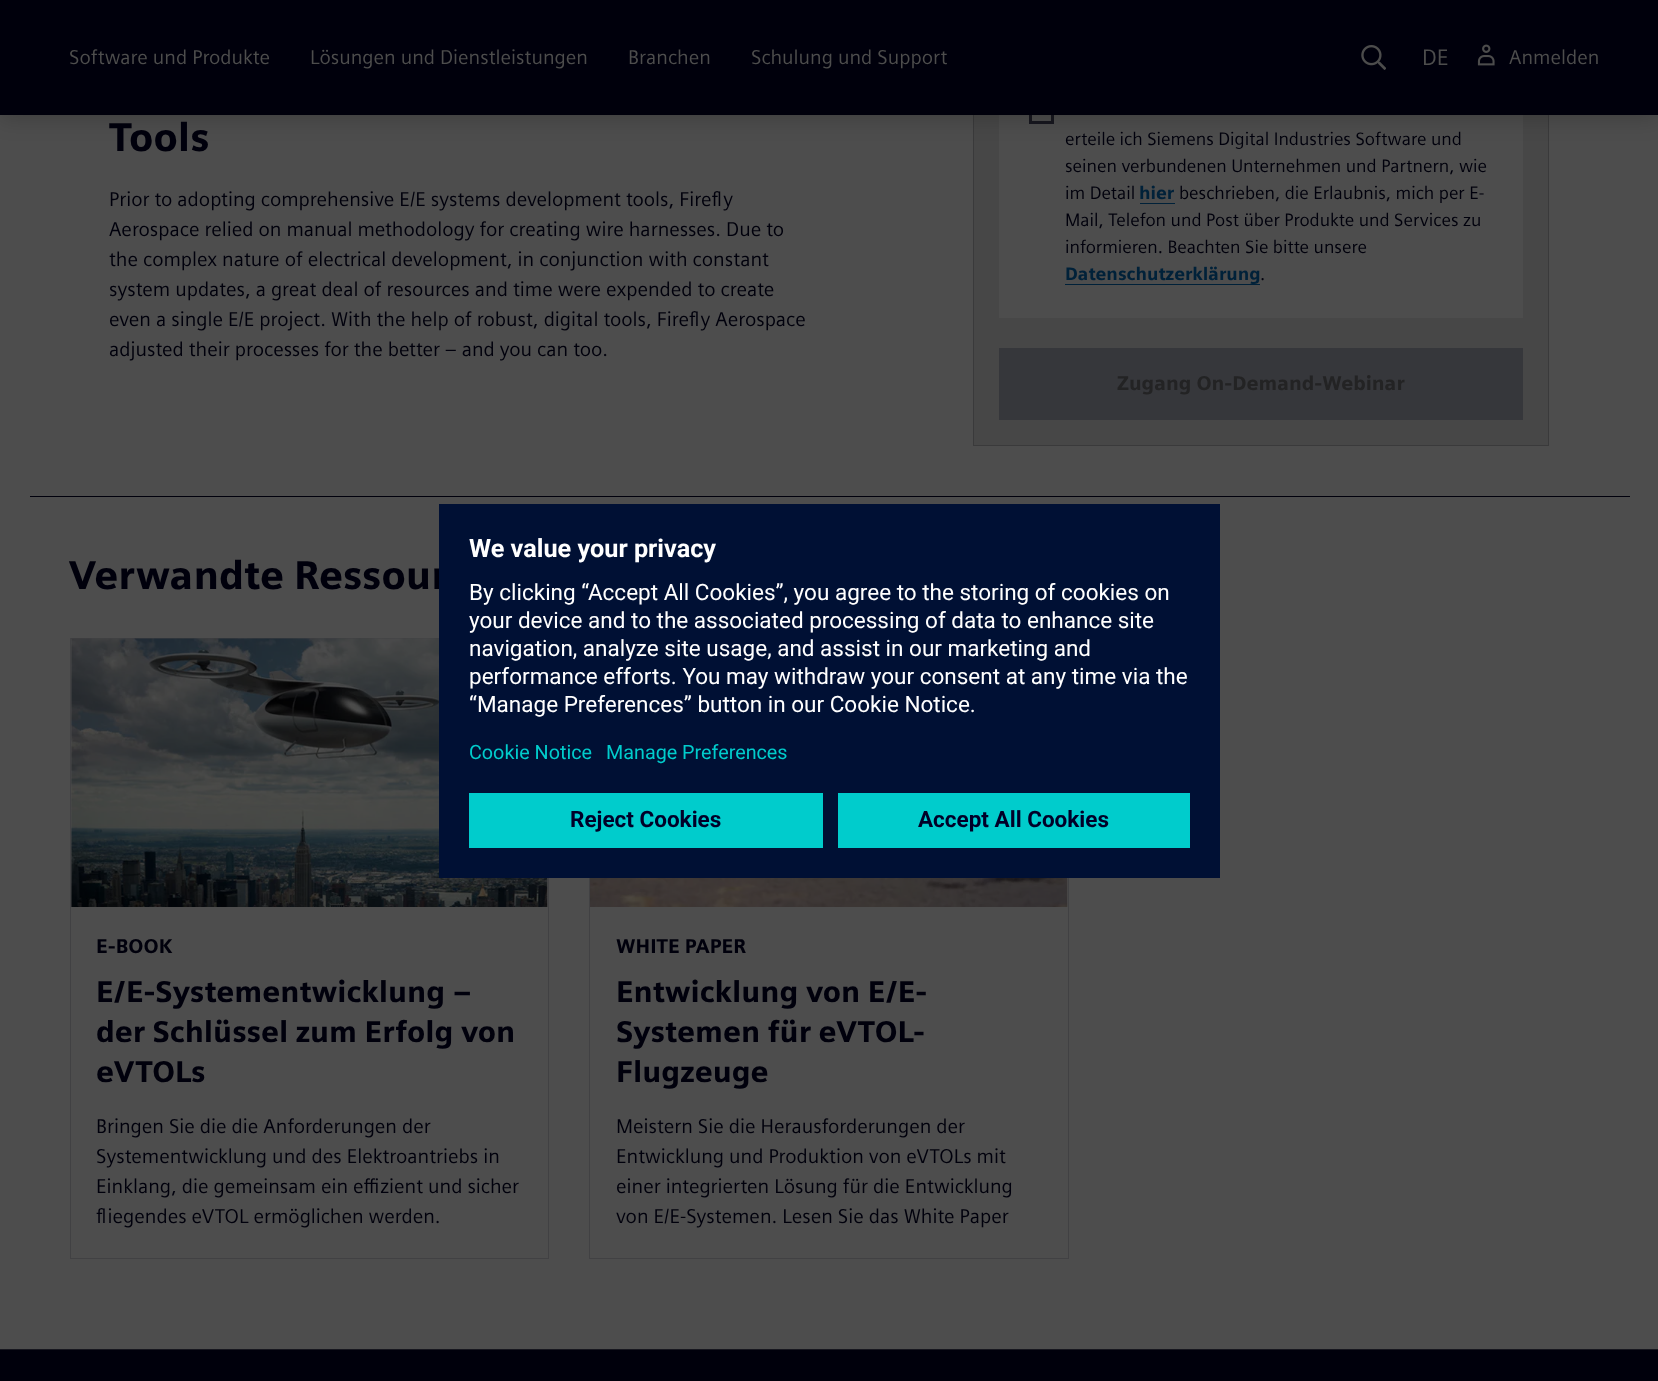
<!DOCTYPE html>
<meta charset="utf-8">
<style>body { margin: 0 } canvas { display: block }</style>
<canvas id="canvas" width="1658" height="1381"></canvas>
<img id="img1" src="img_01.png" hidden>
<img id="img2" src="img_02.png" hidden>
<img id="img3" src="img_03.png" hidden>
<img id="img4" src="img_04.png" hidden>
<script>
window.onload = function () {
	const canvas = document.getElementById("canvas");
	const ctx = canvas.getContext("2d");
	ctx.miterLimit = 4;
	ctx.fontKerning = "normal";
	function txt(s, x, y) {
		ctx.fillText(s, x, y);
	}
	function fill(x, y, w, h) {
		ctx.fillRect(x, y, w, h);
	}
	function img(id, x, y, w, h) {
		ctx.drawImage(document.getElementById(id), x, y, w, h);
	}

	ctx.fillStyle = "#4D4D4D";
	fill(0, 0, 1658, 1381);
	ctx.fillStyle = "#474747";
	fill(974, 115, 574, 330);
	ctx.strokeStyle = "#3A3A3B";
	ctx.strokeRect(973.5, -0.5, 575, 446);
	ctx.fillStyle = "#4D4D4D";
	fill(999, 115, 524, 203);
	ctx.strokeStyle = "#17171F";
	ctx.lineWidth = 3;
	ctx.strokeRect(1030.5, 100.5, 22, 22);
	ctx.fillStyle = "rgba(0, 0, 0, 0.2)";
	ctx.filter = "blur(11px)";
	ctx.beginPath();
	ctx.rect(0, 3, 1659, 115);
	ctx.fill();
	ctx.filter = "none";
	ctx.fillStyle = "#00000C";
	fill(0, 0, 1658, 115);
	img("img1", 1361, 45, 25, 25);
	img("img2", 1477, 44, 18, 22);
	ctx.fillStyle = "#002139";
	fill(1140, 203, 35, 1);
	fill(1065, 284, 195, 1);
	ctx.fillStyle = "#36373B";
	fill(999, 348, 524, 72);
	ctx.fillStyle = "#00000C";
	fill(30, 496, 1600, 1);
	ctx.strokeStyle = "#414143";
	ctx.lineWidth = 1;
	ctx.strokeRect(70.5, 638.5, 478, 620);
	img("img3", 71, 638, 477, 269);
	ctx.strokeRect(589.5, 638.5, 479, 620);
	img("img4", 590, 878, 478, 29);
	fill(0, 1350, 1658, 31);
	ctx.fillStyle = "#17171F";
	fill(0, 1349, 1658, 1);
	ctx.font = "20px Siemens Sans";
	ctx.fillStyle = "#4D4D4D";
	txt("Software und Produkte", 69, 64);
	txt("Lösungen und Dienstleistungen", 310, 64);
	txt("Branchen", 628, 64);
	txt("Schulung und Support", 751, 64);
	ctx.font = "22.5px Siemens Sans";
	txt("DE", 1422, 65);
	ctx.font = "20px Siemens Sans";
	txt("Anmelden", 1509, 64);
	ctx.font = "900 40px Siemens Sans";
	ctx.fillStyle = "#00000C";
	txt("Tools", 109, 151);
	ctx.font = "20px Siemens Sans";
	txt("Prior to adopting comprehensive E/E systems development tools, Firefly", 109, 206);
	txt("Aerospace relied on manual methodology for creating wire harnesses. Due to", 109, 236);
	txt("the complex nature of electrical development, in conjunction with constant", 109, 266);
	txt("system updates, a great deal of resources and time were expended to create", 109, 296);
	txt("even a single E/E project. With the help of robust, digital tools, Firefly Aerospace", 109, 326);
	txt("adjusted their processes for the better – and you can too.", 109, 356);
	ctx.font = "18px Siemens Sans";
	txt("erteile ich Siemens Digital Industries Software und", 1065, 145);
	txt("seinen verbundenen Unternehmen und Partnern, wie", 1065, 172);
	txt("im Detail", 1065, 199);
	ctx.font = "900 18px Siemens Sans";
	ctx.fillStyle = "#002139";
	txt("hier", 1139, 199);
	ctx.font = "18px Siemens Sans";
	ctx.fillStyle = "#00000C";
	txt("beschrieben, die Erlaubnis, mich per E-", 1179, 199);
	txt("Mail, Telefon und Post über Produkte und Services zu", 1065, 226);
	txt("informieren. Beachten Sie bitte unsere", 1065, 253);
	ctx.font = "900 18px Siemens Sans";
	ctx.fillStyle = "#002139";
	txt("Datenschutzerklärung", 1065, 280);
	ctx.font = "18px Siemens Sans";
	ctx.fillStyle = "#00000C";
	txt(".", 1260, 280);
	ctx.font = "900 20px Siemens Sans";
	ctx.fillStyle = "#232324";
	txt("Zugang On-Demand-Webinar", 1117, 390);
	ctx.font = "900 40px Siemens Sans";
	ctx.fillStyle = "#00000C";
	txt("Verwandte Ressour", 69, 589);
	ctx.font = "900 20px Siemens Sans";
	txt("E-BOOK", 96, 953);
	ctx.font = "900 30px Siemens Sans";
	txt("E/E-Systementwicklung –", 96, 1002);
	txt("der Schlüssel zum Erfolg von", 96, 1042);
	txt("eVTOLs", 96, 1082);
	ctx.font = "20px Siemens Sans";
	txt("Bringen Sie die die Anforderungen der", 96, 1133);
	txt("Systementwicklung und des Elektroantriebs in", 96, 1163);
	txt("Einklang, die gemeinsam ein effizient und sicher", 96, 1193);
	txt("fliegendes eVTOL ermöglichen werden.", 96, 1223);
	ctx.font = "900 20px Siemens Sans";
	txt("WHITE PAPER", 616, 953);
	ctx.font = "900 30px Siemens Sans";
	txt("Entwicklung von E/E-", 616, 1002);
	txt("Systemen für eVTOL-", 616, 1042);
	txt("Flugzeuge", 616, 1082);
	ctx.font = "20px Siemens Sans";
	txt("Meistern Sie die Herausforderungen der", 616, 1133);
	txt("Entwicklung und Produktion von eVTOLs mit", 616, 1163);
	txt("einer integrierten Lösung für die Entwicklung", 616, 1193);
	txt("von E/E-Systemen. Lesen Sie das White Paper", 616, 1223);
	ctx.fillStyle = "#001034";
	fill(439, 504, 781, 374);
	ctx.font = "bold 25.25px Roboto";
	ctx.fillStyle = "#FFFFFF";
	txt("We value your privacy", 469, 557);
	ctx.font = "22.5px Roboto";
	txt("By clicking “Accept All Cookies”, you agree to the storing of cookies on", 469, 600);
	txt("your device and to the associated processing of data to enhance site", 469, 628);
	txt("navigation, analyze site usage, and assist in our marketing and", 469, 656);
	txt("performance efforts. You may withdraw your consent at any time via the", 469, 684);
	txt("“Manage Preferences” button in our Cookie Notice.", 469, 712);
	ctx.font = "19.75px Roboto";
	ctx.fillStyle = "#00CCCC";
	txt("Cookie Notice", 469, 759);
	txt("Manage Preferences", 606, 759);
	fill(469, 793, 354, 55);
	ctx.font = "bold 22.5px Roboto";
	ctx.fillStyle = "#000028";
	txt("Reject Cookies", 570, 827);
	ctx.fillStyle = "#00CCCC";
	fill(838, 793, 352, 55);
	ctx.fillStyle = "#000028";
	txt("Accept All Cookies", 918, 827);
};
</script>
